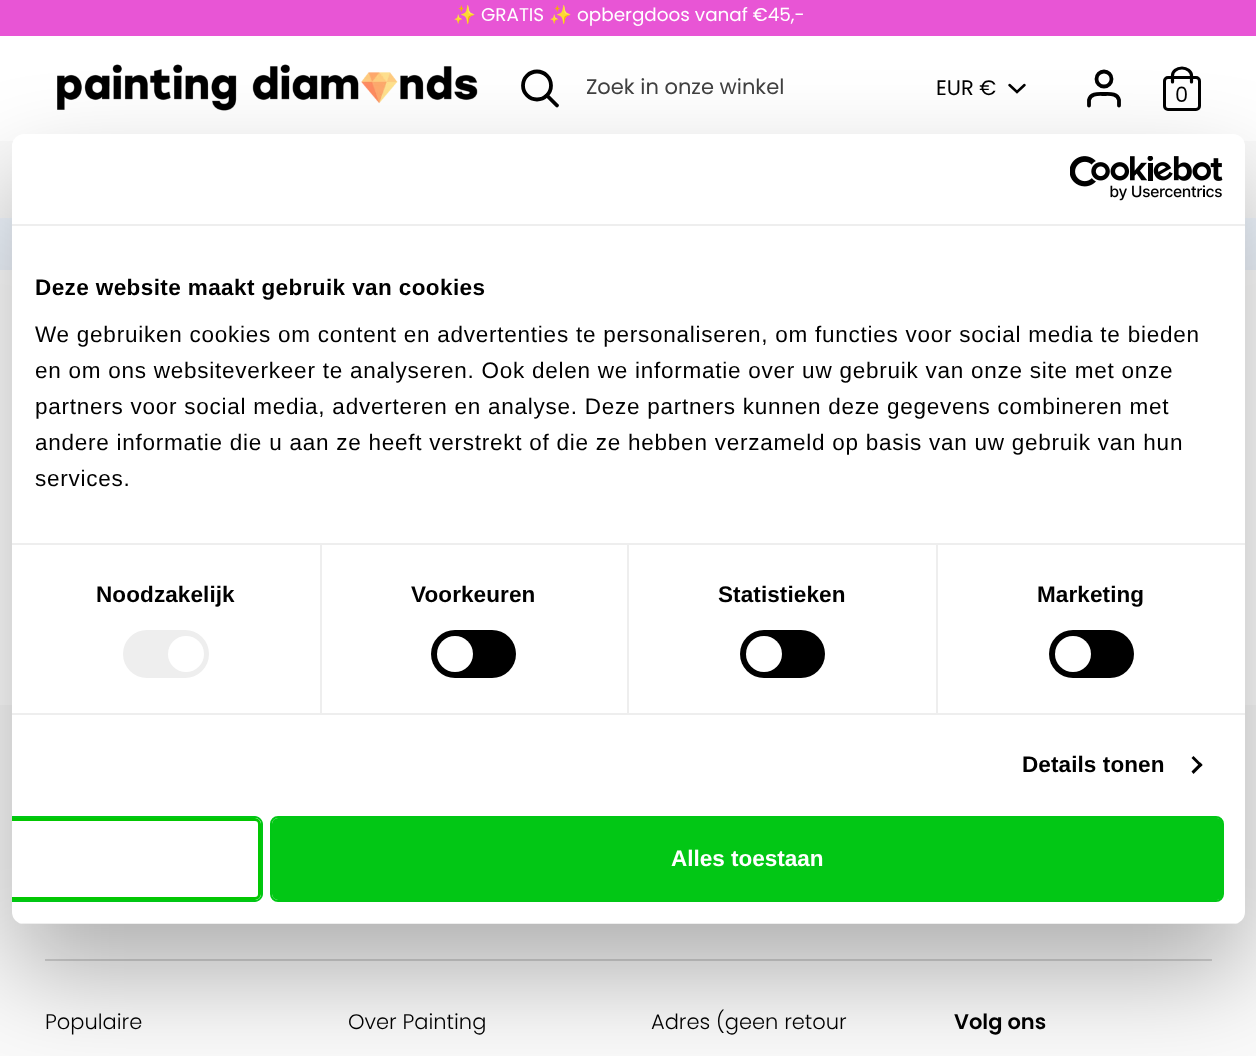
<!DOCTYPE html>
<meta charset="utf-8">
<style>body { margin: 0 } canvas { display: block }</style>
<canvas id="canvas" width="1256" height="1056"></canvas>
<img id="img1" src="img_01.png" hidden>
<img id="img2" src="img_02.png" hidden>
<script>
window.onload = function () {
	const canvas = document.getElementById("canvas");
	const ctx = canvas.getContext("2d");
	ctx.miterLimit = 4;
	ctx.fontKerning = "normal";
	function txt(s, x, y) {
		ctx.fillText(s, x, y);
	}
	function fill(x, y, w, h) {
		ctx.fillRect(x, y, w, h);
	}
	function round(x, y, w, h, r) {
		ctx.beginPath();
		ctx.roundRect(x, y, w, h, r);
		ctx.fill();
	}
	function img(id, x, y, w, h) {
		ctx.drawImage(document.getElementById(id), x, y, w, h);
	}

	ctx.fillStyle = "#FFFFFF";
	fill(0, 0, 1256, 1056);
	ctx.fillStyle = "#E855D5";
	fill(0, 0, 1256, 36);
	img("img1", 57, 64, 421, 47);
	ctx.beginPath();
	ctx.arc(537, 85.5, 14, 0, Math.PI * 2);
	ctx.strokeStyle = "#000000";
	ctx.lineWidth = 3.8;
	ctx.stroke();
	ctx.beginPath();
	ctx.moveTo(557, 105.5);
	ctx.lineTo(547, 95.5);
	ctx.lineCap = "round";
	ctx.stroke();
	ctx.beginPath();
	ctx.moveTo(1009.5, 85);
	ctx.lineTo(1017, 92);
	ctx.lineTo(1024.5, 85);
	ctx.lineWidth = 2.5;
	ctx.stroke();
	ctx.beginPath();
	ctx.moveTo(1119, 105.5);
	ctx.lineTo(1119, 100);
	ctx.bezierCurveTo(1117.5, 93, 1109.5, 94, 1104, 94);
	ctx.bezierCurveTo(1098.5, 94, 1090.5, 93, 1089, 100);
	ctx.lineTo(1089, 105.5);
	ctx.lineWidth = 3.8;
	ctx.stroke();
	ctx.beginPath();
	ctx.arc(1104, 79, 7.5, 0, Math.PI * 2);
	ctx.stroke();
	ctx.beginPath();
	ctx.roundRect(1164.5, 77.5, 35, 32, 3.5);
	ctx.lineWidth = 3;
	ctx.stroke();
	ctx.beginPath();
	ctx.moveTo(1172.5, 82);
	ctx.lineTo(1172.5, 75.5);
	ctx.bezierCurveTo(1172.5, 71.5, 1176.5, 68, 1182, 68);
	ctx.bezierCurveTo(1187, 68, 1191.5, 71.5, 1191.5, 75.5);
	ctx.lineTo(1191.5, 82);
	ctx.lineWidth = 3.2;
	ctx.stroke();
	ctx.fillStyle = "#FAFAFA";
	fill(0, 141, 1256, 77);
	ctx.fillStyle = "#F0F6FE";
	fill(0, 218, 1256, 52);
	ctx.fillStyle = "#FAFAFA";
	fill(0, 705, 1256, 351);
	ctx.fillStyle = "#D5D5D5";
	fill(45, 959, 1167, 2);
	ctx.fillStyle = "rgba(0, 0, 0, 0.3)";
	ctx.filter = "blur(51px)";
	ctx.beginPath();
	ctx.roundRect(12, 182, 1233, 790, 12);
	ctx.fill();
	ctx.filter = "none";
	ctx.fillStyle = "#FFFFFF";
	round(12, 134, 1233, 790, 12);
	ctx.fillStyle = "#EEEEEE";
	fill(12, 224, 1233, 2);
	img("img2", 1070, 156, 153, 45);
	fill(12, 543, 1233, 2);
	fill(12, 713, 1233, 2);
	fill(320, 545, 2, 168);
	round(123, 630, 86, 48, 24);
	ctx.fillStyle = "#FFFFFF";
	ctx.beginPath();
	ctx.arc(186, 654, 18, 0, Math.PI * 2);
	ctx.fill();
	ctx.fillStyle = "#EEEEEE";
	fill(627, 545, 2, 168);
	ctx.fillStyle = "#000000";
	round(431, 630, 85, 48, 24);
	ctx.fillStyle = "#FFFFFF";
	ctx.beginPath();
	ctx.arc(455, 654, 18, 0, Math.PI * 2);
	ctx.fill();
	ctx.fillStyle = "#EEEEEE";
	fill(936, 545, 2, 168);
	ctx.fillStyle = "#000000";
	round(740, 630, 85, 48, 24);
	ctx.fillStyle = "#FFFFFF";
	ctx.beginPath();
	ctx.arc(764, 654, 18, 0, Math.PI * 2);
	ctx.fill();
	ctx.fillStyle = "#000000";
	round(1049, 630, 85, 48, 24);
	ctx.fillStyle = "#FFFFFF";
	ctx.beginPath();
	ctx.arc(1073, 654, 18, 0, Math.PI * 2);
	ctx.fill();
	ctx.fillStyle = "#000000";
	ctx.beginPath();
	ctx.moveTo(1193.5, 756);
	ctx.lineTo(1202.5, 765);
	ctx.lineTo(1200.5, 767);
	ctx.lineTo(1191.5, 758);
	ctx.closePath();
	ctx.fill();
	ctx.beginPath();
	ctx.moveTo(1200.5, 762.5);
	ctx.lineTo(1202.5, 765);
	ctx.lineTo(1193.5, 774);
	ctx.lineTo(1191.5, 771.5);
	ctx.closePath();
	ctx.fill();
	ctx.save();
	ctx.beginPath();
	ctx.roundRect(12, 134, 1233, 790, 12);
	ctx.clip();
	ctx.fillStyle = "#EEEEEE";
	fill(12, 923, 1233, 1);
	ctx.restore();
	ctx.fillStyle = "#00C715";
	ctx.beginPath();
	ctx.moveTo(12, 902);
	ctx.lineTo(255, 902);
	ctx.bezierCurveTo(259, 902, 263, 898, 263, 894);
	ctx.lineTo(263, 824);
	ctx.bezierCurveTo(263, 820, 259, 816, 255, 816);
	ctx.lineTo(12, 816);
	ctx.lineTo(12, 818);
	ctx.lineTo(255, 818);
	ctx.bezierCurveTo(258, 818, 261, 821, 261, 824);
	ctx.lineTo(261, 894);
	ctx.bezierCurveTo(261, 897, 258, 900, 255, 900);
	ctx.lineTo(12, 900);
	ctx.closePath();
	ctx.fill();
	ctx.fillStyle = "#FFFFFF";
	ctx.beginPath();
	ctx.roundRect(12, 818, 249, 82, [0, 6, 6, 0]);
	ctx.fill();
	ctx.fillStyle = "#02C702";
	ctx.beginPath();
	ctx.moveTo(12, 900);
	ctx.lineTo(255, 900);
	ctx.bezierCurveTo(258, 900, 261, 897, 261, 894);
	ctx.lineTo(261, 824);
	ctx.bezierCurveTo(261, 821, 258, 818, 255, 818);
	ctx.lineTo(12, 818);
	ctx.lineTo(12, 821);
	ctx.lineTo(255, 821);
	ctx.bezierCurveTo(257, 821, 258, 822, 258, 824);
	ctx.lineTo(258, 894);
	ctx.bezierCurveTo(258, 896, 257, 897, 255, 897);
	ctx.lineTo(12, 897);
	ctx.closePath();
	ctx.fill();
	ctx.beginPath();
	ctx.roundRect(271, 817, 952, 84, 7);
	ctx.strokeStyle = "#00C715";
	ctx.lineWidth = 2;
	ctx.stroke();
	ctx.fillStyle = "#02C715";
	ctx.beginPath();
	ctx.roundRect(273.5, 819.5, 948, 79, 4.5);
	ctx.fill();
	ctx.strokeStyle = "#02C715";
	ctx.lineWidth = 3;
	ctx.stroke();
	ctx.font = "18.4px Noto Color Emoji";
	ctx.fillStyle = "#FFFFFF";
	txt("✨", 453, 21);
	ctx.font = "18.4px Poppins";
	txt("GRATIS", 481, 21);
	ctx.font = "18.4px Noto Color Emoji";
	txt("✨", 549, 21);
	ctx.font = "18.4px Poppins";
	txt("opbergdoos vanaf €45,-", 577, 21);
	ctx.font = "21px Poppins";
	ctx.fillStyle = "#404040";
	txt("Zoek in onze winkel", 586, 94);
	ctx.fillStyle = "#000000";
	txt("EUR €", 936, 95);
	txt("0", 1175, 102);
	ctx.letterSpacing = "0.4px";
	ctx.font = "bold 22.5px Liberation Sans";
	txt("Deze website maakt gebruik van cookies", 35, 295);
	ctx.letterSpacing = "0.75px";
	ctx.font = "22.5px Liberation Sans";
	txt("We gebruiken cookies om content en advertenties te personaliseren, om functies voor social media te bieden", 35, 342);
	txt("en om ons websiteverkeer te analyseren. Ook delen we informatie over uw gebruik van onze site met onze", 35, 378);
	txt("partners voor social media, adverteren en analyse. Deze partners kunnen deze gegevens combineren met", 35, 414);
	txt("andere informatie die u aan ze heeft verstrekt of die ze hebben verzameld op basis van uw gebruik van hun", 35, 450);
	txt("services.", 35, 486);
	ctx.letterSpacing = "0.1px";
	ctx.font = "bold 22.5px Liberation Sans";
	txt("Noodzakelijk", 96, 602);
	txt("Voorkeuren", 411, 602);
	txt("Statistieken", 718, 602);
	txt("Marketing", 1037, 602);
	txt("Details tonen", 1022, 772);
	ctx.letterSpacing = "0px";
	ctx.fillStyle = "#FFFFFF";
	txt("Alles toestaan", 671, 866);
	ctx.font = "300 21px Poppins";
	ctx.fillStyle = "#000000";
	txt("Populaire", 45, 1029);
	txt("Over Painting", 348, 1029);
	txt("Adres (geen retour", 651, 1029);
	ctx.font = "600 21px Poppins";
	txt("Volg ons", 954, 1029);
};
</script>
